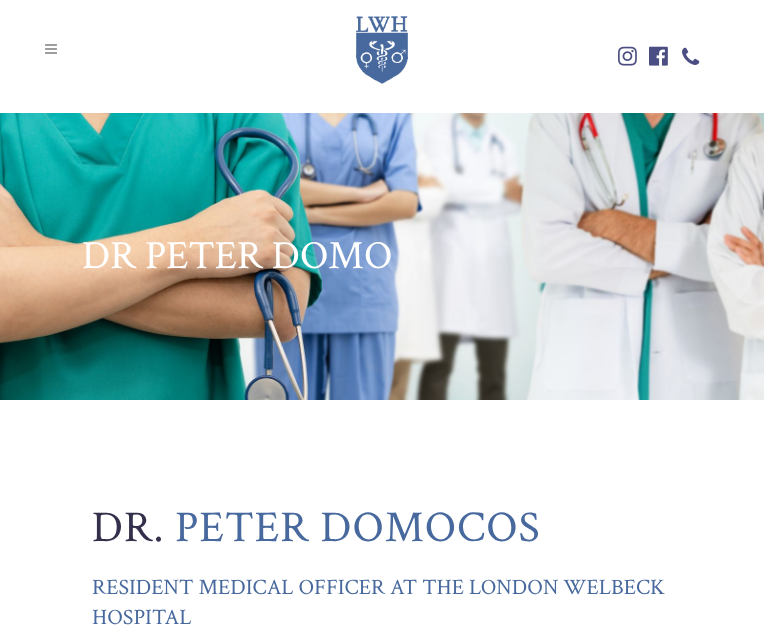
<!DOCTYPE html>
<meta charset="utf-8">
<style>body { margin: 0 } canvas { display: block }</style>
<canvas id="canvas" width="764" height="625"></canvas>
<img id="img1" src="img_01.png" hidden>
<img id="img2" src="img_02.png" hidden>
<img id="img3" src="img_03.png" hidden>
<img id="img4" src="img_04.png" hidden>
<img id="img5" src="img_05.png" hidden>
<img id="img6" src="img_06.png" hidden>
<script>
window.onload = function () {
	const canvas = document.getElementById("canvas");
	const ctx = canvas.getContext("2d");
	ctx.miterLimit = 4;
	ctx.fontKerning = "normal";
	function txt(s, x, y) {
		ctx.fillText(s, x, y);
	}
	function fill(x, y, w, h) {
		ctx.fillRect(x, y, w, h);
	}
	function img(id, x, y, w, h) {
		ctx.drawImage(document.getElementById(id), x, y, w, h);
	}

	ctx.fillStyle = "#FFFFFF";
	fill(0, 0, 764, 625);
	img("img1", 45, 44, 12, 10);
	img("img2", 356, 16, 52, 68);
	img("img3", 618, 46, 19, 20);
	img("img4", 649, 46, 19, 20);
	img("img5", 682, 47, 18, 18);
	img("img6", 0, 113, 764, 287);
	ctx.font = "40px Crimson Text";
	txt("DR PETER DOMO", 82, 268);
	ctx.letterSpacing = "1px";
	ctx.font = "44px Crimson Text";
	ctx.fillStyle = "#33304B";
	txt("DR.", 92, 541);
	ctx.fillStyle = "#48699D";
	txt("PETER DOMOCOS", 175, 541);
	ctx.letterSpacing = "0px";
	ctx.font = "22px Crimson Text";
	txt("RESIDENT MEDICAL OFFICER AT THE LONDON WELBECK", 92, 594);
	txt("HOSPITAL", 92, 624);
};
</script>
